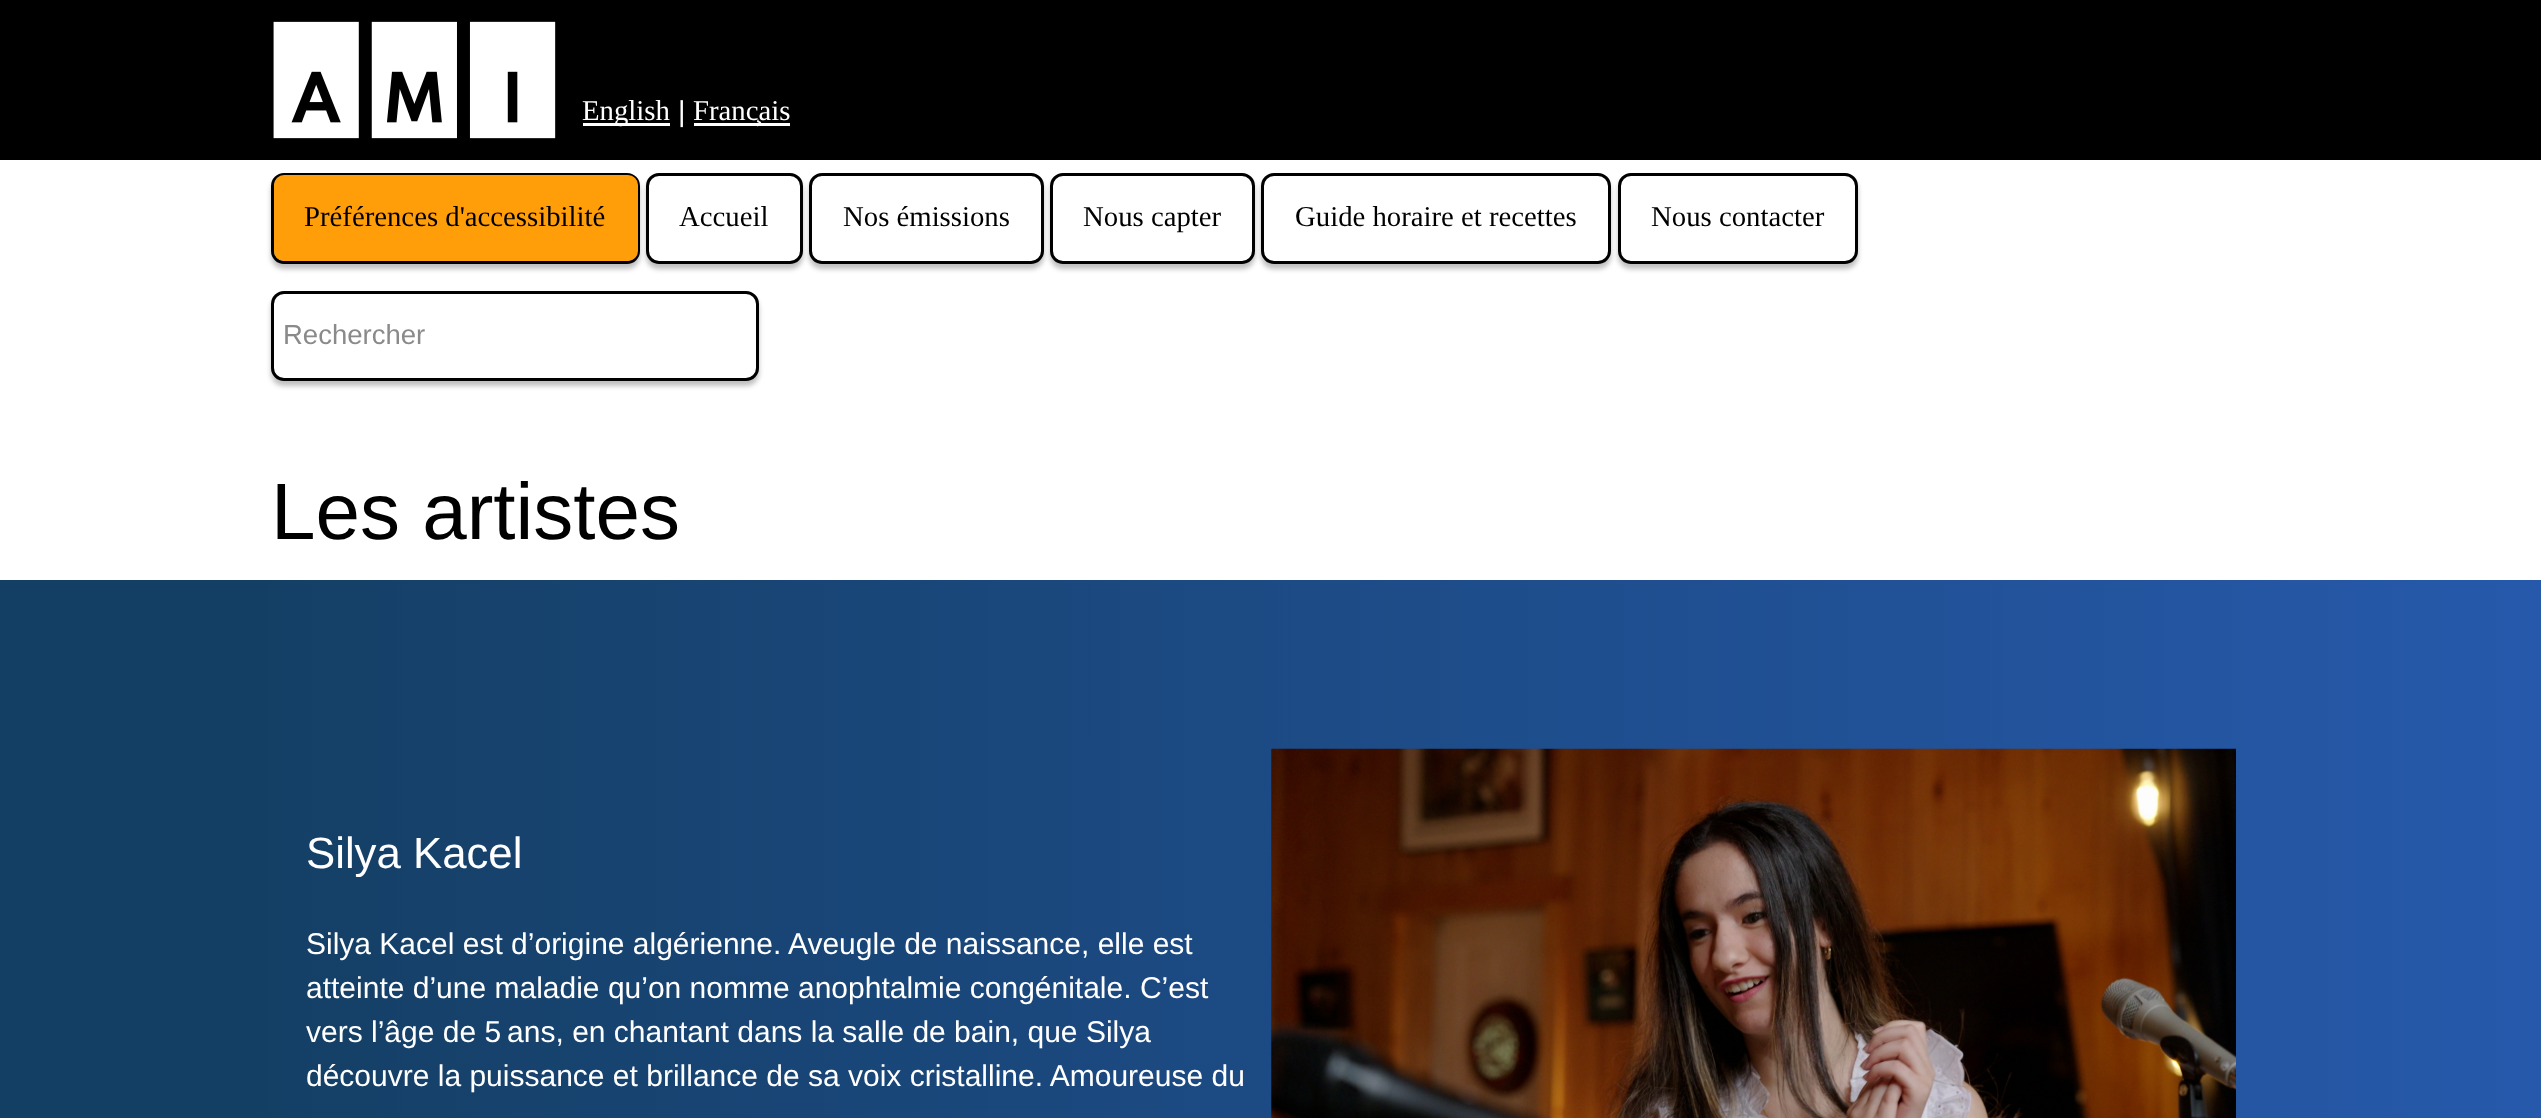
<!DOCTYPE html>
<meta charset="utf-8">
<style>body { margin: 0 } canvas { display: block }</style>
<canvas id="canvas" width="2541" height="1118"></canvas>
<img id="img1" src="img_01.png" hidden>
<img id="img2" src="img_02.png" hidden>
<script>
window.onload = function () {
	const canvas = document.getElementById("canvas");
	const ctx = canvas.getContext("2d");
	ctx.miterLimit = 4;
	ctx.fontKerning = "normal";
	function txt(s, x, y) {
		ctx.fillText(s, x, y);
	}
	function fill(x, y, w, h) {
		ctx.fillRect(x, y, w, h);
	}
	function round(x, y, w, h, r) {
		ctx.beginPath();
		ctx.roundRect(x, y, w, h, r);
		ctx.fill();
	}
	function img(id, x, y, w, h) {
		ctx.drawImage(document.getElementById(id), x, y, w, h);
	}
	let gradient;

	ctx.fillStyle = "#FFFFFF";
	fill(0, 0, 2541, 1118);
	ctx.fillStyle = "#000000";
	fill(0, 0, 2541, 160);
	img("img1", 273, 21, 283, 118);
	ctx.fillStyle = "#FFFFFF";
	fill(583, 123, 87, 3);
	fill(694, 123, 96, 3);
	ctx.fillStyle = "rgba(0, 0, 0, 0.25)";
	ctx.filter = "blur(2.5px)";
	ctx.beginPath();
	ctx.roundRect(271, 178, 369, 91, 13);
	ctx.fill();
	ctx.filter = "none";
	ctx.beginPath();
	ctx.roundRect(272.5, 174.5, 366, 88, 11.5);
	ctx.strokeStyle = "#000000";
	ctx.lineWidth = 3;
	ctx.stroke();
	ctx.fillStyle = "#FF9E09";
	round(274, 175, 364, 86, 10);
	ctx.save();
	ctx.beginPath();
	ctx.moveTo(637, 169);
	ctx.lineTo(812, 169);
	ctx.lineTo(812, 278);
	ctx.lineTo(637, 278);
	ctx.closePath();
	ctx.moveTo(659, 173);
	ctx.lineTo(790, 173);
	ctx.bezierCurveTo(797, 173, 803, 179, 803, 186);
	ctx.lineTo(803, 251);
	ctx.bezierCurveTo(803, 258, 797, 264, 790, 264);
	ctx.lineTo(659, 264);
	ctx.bezierCurveTo(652, 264, 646, 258, 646, 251);
	ctx.lineTo(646, 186);
	ctx.bezierCurveTo(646, 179, 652, 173, 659, 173);
	ctx.closePath();
	ctx.clip("evenodd");
	ctx.fillStyle = "rgba(0, 0, 0, 0.25)";
	ctx.filter = "blur(2.5px)";
	ctx.beginPath();
	ctx.roundRect(646, 178, 157, 91, 13);
	ctx.fill();
	ctx.filter = "none";
	ctx.restore();
	ctx.beginPath();
	ctx.roundRect(647.5, 174.5, 154, 88, 11.5);
	ctx.stroke();
	ctx.save();
	ctx.beginPath();
	ctx.moveTo(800, 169);
	ctx.lineTo(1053, 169);
	ctx.lineTo(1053, 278);
	ctx.lineTo(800, 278);
	ctx.closePath();
	ctx.moveTo(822, 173);
	ctx.lineTo(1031, 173);
	ctx.bezierCurveTo(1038, 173, 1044, 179, 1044, 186);
	ctx.lineTo(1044, 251);
	ctx.bezierCurveTo(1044, 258, 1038, 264, 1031, 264);
	ctx.lineTo(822, 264);
	ctx.bezierCurveTo(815, 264, 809, 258, 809, 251);
	ctx.lineTo(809, 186);
	ctx.bezierCurveTo(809, 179, 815, 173, 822, 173);
	ctx.closePath();
	ctx.clip("evenodd");
	ctx.fillStyle = "rgba(0, 0, 0, 0.25)";
	ctx.filter = "blur(2.5px)";
	ctx.beginPath();
	ctx.roundRect(809, 178, 235, 91, 13);
	ctx.fill();
	ctx.filter = "none";
	ctx.restore();
	ctx.beginPath();
	ctx.roundRect(810.5, 174.5, 232, 88, 11.5);
	ctx.stroke();
	ctx.save();
	ctx.beginPath();
	ctx.moveTo(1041, 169);
	ctx.lineTo(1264, 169);
	ctx.lineTo(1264, 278);
	ctx.lineTo(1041, 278);
	ctx.closePath();
	ctx.moveTo(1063, 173);
	ctx.lineTo(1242, 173);
	ctx.bezierCurveTo(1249, 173, 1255, 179, 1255, 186);
	ctx.lineTo(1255, 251);
	ctx.bezierCurveTo(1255, 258, 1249, 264, 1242, 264);
	ctx.lineTo(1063, 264);
	ctx.bezierCurveTo(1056, 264, 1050, 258, 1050, 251);
	ctx.lineTo(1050, 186);
	ctx.bezierCurveTo(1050, 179, 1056, 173, 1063, 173);
	ctx.closePath();
	ctx.clip("evenodd");
	ctx.fillStyle = "rgba(0, 0, 0, 0.25)";
	ctx.filter = "blur(2.5px)";
	ctx.beginPath();
	ctx.roundRect(1050, 178, 205, 91, 13);
	ctx.fill();
	ctx.filter = "none";
	ctx.restore();
	ctx.beginPath();
	ctx.roundRect(1051.5, 174.5, 202, 88, 11.5);
	ctx.stroke();
	ctx.save();
	ctx.beginPath();
	ctx.moveTo(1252, 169);
	ctx.lineTo(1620, 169);
	ctx.lineTo(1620, 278);
	ctx.lineTo(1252, 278);
	ctx.closePath();
	ctx.moveTo(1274, 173);
	ctx.lineTo(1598, 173);
	ctx.bezierCurveTo(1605, 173, 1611, 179, 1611, 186);
	ctx.lineTo(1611, 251);
	ctx.bezierCurveTo(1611, 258, 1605, 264, 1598, 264);
	ctx.lineTo(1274, 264);
	ctx.bezierCurveTo(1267, 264, 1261, 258, 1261, 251);
	ctx.lineTo(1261, 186);
	ctx.bezierCurveTo(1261, 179, 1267, 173, 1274, 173);
	ctx.closePath();
	ctx.clip("evenodd");
	ctx.fillStyle = "rgba(0, 0, 0, 0.25)";
	ctx.filter = "blur(2.5px)";
	ctx.beginPath();
	ctx.roundRect(1261, 178, 350, 91, 13);
	ctx.fill();
	ctx.filter = "none";
	ctx.restore();
	ctx.beginPath();
	ctx.roundRect(1262.5, 174.5, 347, 88, 11.5);
	ctx.stroke();
	ctx.save();
	ctx.beginPath();
	ctx.moveTo(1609, 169);
	ctx.lineTo(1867, 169);
	ctx.lineTo(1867, 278);
	ctx.lineTo(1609, 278);
	ctx.closePath();
	ctx.moveTo(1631, 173);
	ctx.lineTo(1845, 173);
	ctx.bezierCurveTo(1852, 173, 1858, 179, 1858, 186);
	ctx.lineTo(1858, 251);
	ctx.bezierCurveTo(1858, 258, 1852, 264, 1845, 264);
	ctx.lineTo(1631, 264);
	ctx.bezierCurveTo(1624, 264, 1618, 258, 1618, 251);
	ctx.lineTo(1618, 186);
	ctx.bezierCurveTo(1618, 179, 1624, 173, 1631, 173);
	ctx.closePath();
	ctx.clip("evenodd");
	ctx.fillStyle = "rgba(0, 0, 0, 0.25)";
	ctx.filter = "blur(2.5px)";
	ctx.beginPath();
	ctx.roundRect(1618, 178, 240, 91, 13);
	ctx.fill();
	ctx.filter = "none";
	ctx.restore();
	ctx.beginPath();
	ctx.roundRect(1619.5, 174.5, 237, 88, 11.5);
	ctx.stroke();
	ctx.fillStyle = "rgba(0, 0, 0, 0.25)";
	ctx.filter = "blur(2.5px)";
	ctx.beginPath();
	ctx.roundRect(271, 296, 488, 90, 13);
	ctx.fill();
	ctx.filter = "none";
	ctx.fillStyle = "#FFFFFF";
	ctx.beginPath();
	ctx.roundRect(272.5, 292.5, 485, 87, 11.5);
	ctx.fill();
	ctx.stroke();
	gradient = ctx.createLinearGradient(0, 898, 2541, 897);
	gradient.addColorStop(0, "#143F65");
	gradient.addColorStop(0.1, "#143F65");
	gradient.addColorStop(1, "#2659AB");
	ctx.fillStyle = gradient;
	fill(0, 580, 2541, 538);
	img("img2", 1271, 748, 965, 370);
	ctx.font = "28.75px Liberation Serif";
	ctx.fillStyle = "#FFFFFF";
	txt("English", 582, 120);
	ctx.font = "28.75px Liberation Sans";
	txt("|", 678, 121);
	ctx.font = "28.75px Liberation Serif";
	txt("Français", 693, 120);
	ctx.fillStyle = "#000000";
	txt("Préférences d'accessibilité", 304, 226);
	txt("Accueil", 679, 226);
	txt("Nos émissions", 843, 226);
	txt("Nous capter", 1083, 226);
	txt("Guide horaire et recettes", 1295, 226);
	txt("Nous contacter", 1651, 226);
	ctx.font = "27.5px Liberation Sans";
	ctx.fillStyle = "#8A8A8A";
	txt("Rechercher", 283, 344);
	ctx.font = "80px Liberation Sans";
	ctx.fillStyle = "#000000";
	txt("Les artistes", 271, 539);
	ctx.font = "43.75px Liberation Sans";
	ctx.fillStyle = "#FFFFFF";
	txt("Silya Kacel", 306, 868);
	ctx.font = "30px Liberation Sans";
	txt("Silya Kacel est d’origine algérienne. Aveugle de naissance, elle est", 306, 954);
	txt("atteinte d’une maladie qu’on nomme anophtalmie congénitale. C’est", 306, 998);
	txt("vers l’âge de 5 ans, en chantant dans la salle de bain, que Silya", 306, 1042);
	txt("découvre la puissance et brillance de sa voix cristalline. Amoureuse du", 306, 1086);
};
</script>
